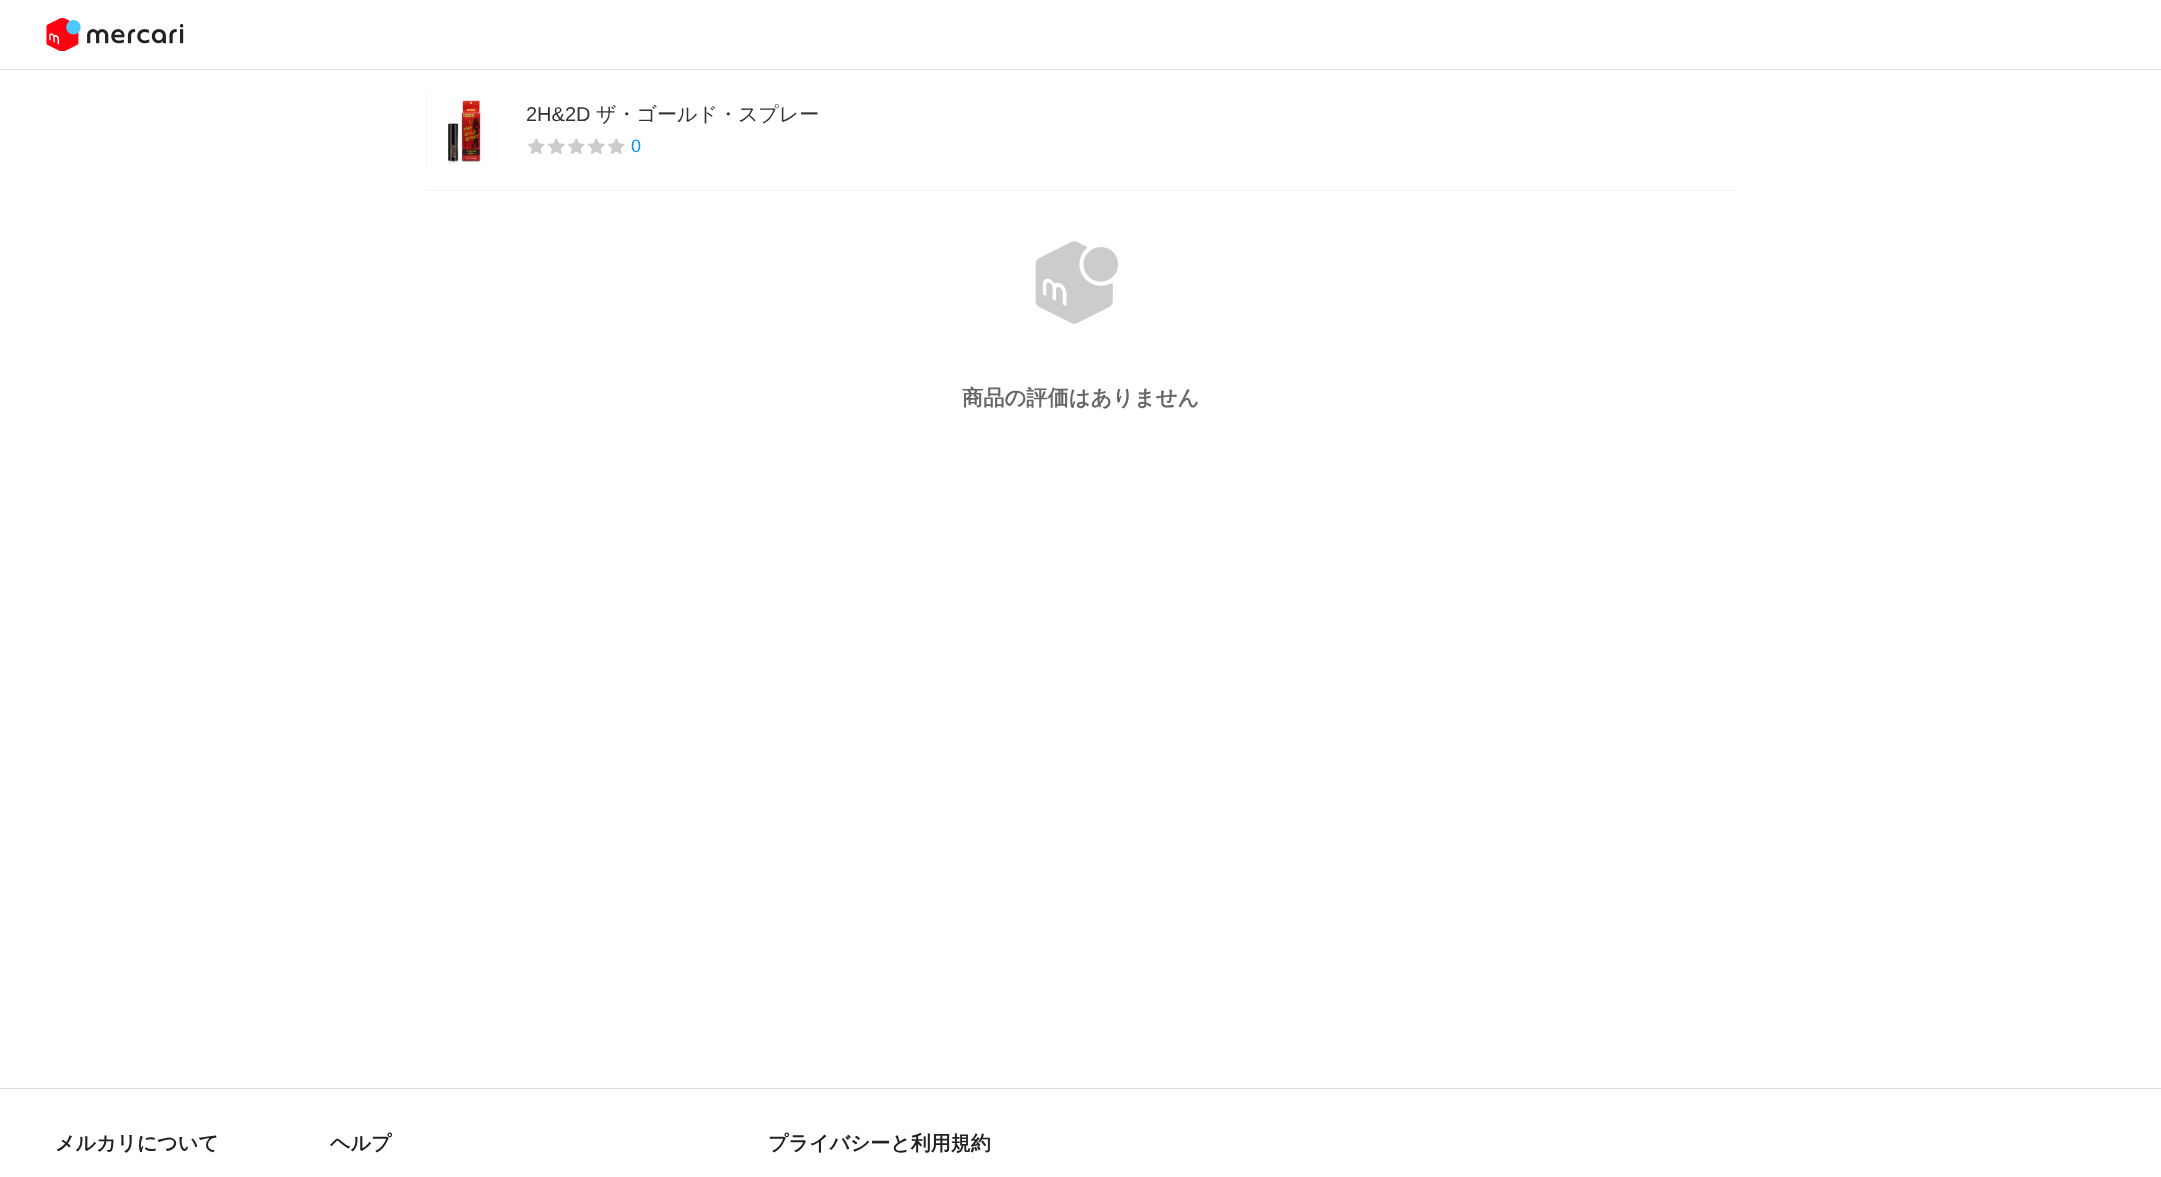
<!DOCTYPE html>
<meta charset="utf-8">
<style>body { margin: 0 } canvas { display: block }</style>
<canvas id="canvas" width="2161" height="1177"></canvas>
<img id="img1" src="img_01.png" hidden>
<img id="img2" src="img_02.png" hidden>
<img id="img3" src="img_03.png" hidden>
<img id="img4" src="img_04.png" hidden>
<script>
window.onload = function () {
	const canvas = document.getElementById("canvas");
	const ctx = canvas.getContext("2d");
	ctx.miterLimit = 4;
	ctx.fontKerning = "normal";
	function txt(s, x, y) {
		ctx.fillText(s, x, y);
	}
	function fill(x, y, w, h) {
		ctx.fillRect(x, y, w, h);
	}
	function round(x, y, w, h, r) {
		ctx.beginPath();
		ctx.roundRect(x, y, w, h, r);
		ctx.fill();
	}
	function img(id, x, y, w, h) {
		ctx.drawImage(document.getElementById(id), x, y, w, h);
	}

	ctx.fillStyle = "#FFFFFF";
	fill(0, 0, 2161, 1177);
	ctx.fillStyle = "#DDDDDD";
	fill(0, 69, 2161, 1);
	img("img1", 46, 18, 138, 33);
	ctx.fillStyle = "#EFEFEF";
	round(426, 90, 80, 80, 5);
	img("img2", 426, 90, 80, 80);
	img("img3", 528, 138, 17, 16);
	img("img3", 548, 138, 17, 16);
	img("img3", 568, 138, 17, 16);
	img("img3", 588, 138, 17, 16);
	img("img3", 608, 138, 17, 16);
	ctx.fillStyle = "#EEF1F6";
	fill(426, 190, 1310, 1);
	img("img4", 1035, 241, 84, 83);
	ctx.fillStyle = "#DDDDDD";
	fill(0, 1088, 2161, 1);
	ctx.font = "20px Liberation Sans";
	ctx.fillStyle = "#333333";
	txt("2H&2D", 526, 121);
	ctx.font = "500 20px WenQuanYi Zen Hei";
	txt("ザ・ゴールド・スプレー", 596, 121);
	ctx.font = "18px Liberation Sans";
	ctx.fillStyle = "#0095EE";
	txt("0", 631, 152);
	ctx.font = "bold 21.25px WenQuanYi Zen Hei";
	ctx.fillStyle = "#666666";
	txt("商品の評価はありません", 962, 405);
	ctx.font = "bold 20px WenQuanYi Zen Hei";
	ctx.fillStyle = "#222222";
	txt("メルカリについて", 55, 1150);
	txt("ヘルプ", 330, 1150);
	txt("プライバシーと利用規約", 768, 1150);
};
</script>
